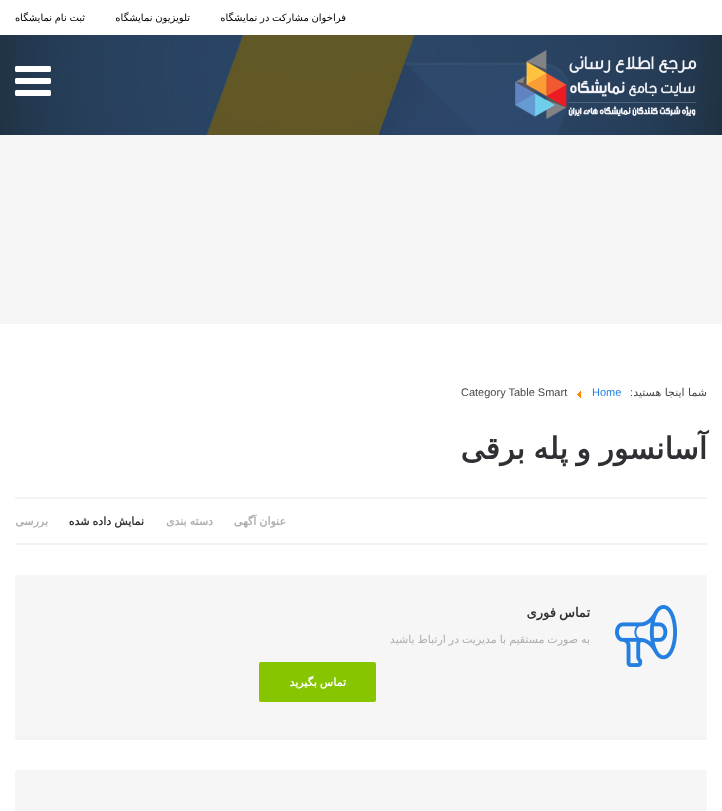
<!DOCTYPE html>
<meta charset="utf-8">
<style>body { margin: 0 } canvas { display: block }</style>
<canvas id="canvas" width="722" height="811"></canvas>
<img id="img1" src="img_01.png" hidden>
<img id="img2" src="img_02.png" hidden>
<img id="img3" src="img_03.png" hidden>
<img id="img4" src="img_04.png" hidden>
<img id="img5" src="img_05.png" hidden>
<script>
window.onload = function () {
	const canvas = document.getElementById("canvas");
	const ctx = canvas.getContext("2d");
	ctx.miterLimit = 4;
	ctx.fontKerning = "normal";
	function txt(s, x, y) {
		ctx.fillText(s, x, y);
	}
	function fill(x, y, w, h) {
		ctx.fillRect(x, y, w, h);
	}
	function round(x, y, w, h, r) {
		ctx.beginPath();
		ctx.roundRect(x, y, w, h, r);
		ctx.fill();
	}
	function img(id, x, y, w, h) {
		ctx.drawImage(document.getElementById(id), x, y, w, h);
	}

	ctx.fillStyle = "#FFFFFF";
	fill(0, 0, 722, 811);
	ctx.fillStyle = "#222F33";
	fill(0, 35, 722, 100);
	img("img1", 0, 35, 722, 100);
	img("img2", 515, 50, 182, 69);
	img("img3", 15, 66, 36, 30);
	ctx.fillStyle = "#F6F6F6";
	fill(0, 135, 722, 189);
	img("img4", 577, 391, 4, 7);
	ctx.fillStyle = "#F3F3F3";
	fill(15, 497, 692, 2);
	fill(15, 543, 692, 2);
	ctx.fillStyle = "#F6F6F6";
	round(15, 575, 692, 165, 2);
	ctx.fillStyle = "#F3F3F3";
	fill(16, 737, 690, 3);
	img("img5", 615, 605, 62, 62);
	ctx.fillStyle = "#87C501";
	round(259, 662, 117, 40, 2);
	ctx.fillStyle = "#F6F6F6";
	round(15, 770, 692, 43, 2);
	ctx.wordSpacing = "-0.5px";
	ctx.direction = "rtl";
	ctx.font = "10px DejaVu Sans";
	ctx.fillStyle = "#000000";
	txt("فراخوان مشارکت در نمایشگاه", 346, 21);
	txt("تلویزیون نمایشگاه", 190, 21);
	txt("ثبت نام", 85, 21);
	ctx.wordSpacing = "0px";
	txt("نمایشگاه", 52, 21);
	ctx.font = "11px DejaVu Sans";
	ctx.fillStyle = "#474747";
	txt("شما اینجا هستید", 707, 396);
	ctx.font = "11px Liberation Sans";
	txt(":", 633, 396);
	ctx.direction = "ltr";
	ctx.fillStyle = "#247FE1";
	txt("Home", 592, 396);
	ctx.fillStyle = "#474747";
	txt("Category Table Smart", 461, 396);
	ctx.wordSpacing = "-1px";
	ctx.direction = "rtl";
	ctx.font = "bold 30px DejaVu Sans";
	ctx.fillStyle = "#2E3033";
	txt("آسانسور و پله برقی", 707, 459);
	ctx.wordSpacing = "-0.5px";
	ctx.font = "bold 11px DejaVu Sans";
	ctx.fillStyle = "#ADADAD";
	txt("عنوان آگهی", 286, 525);
	txt("دسته بندی", 213, 525);
	ctx.fillStyle = "#2E3033";
	txt("نمایش داده شده", 144, 525);
	ctx.wordSpacing = "0px";
	ctx.fillStyle = "#ADADAD";
	txt("بررسی", 48, 525);
	ctx.wordSpacing = "-1px";
	ctx.font = "bold 13px DejaVu Sans";
	ctx.fillStyle = "#2E3033";
	txt("تماس فوری", 590, 617);
	ctx.wordSpacing = "-0.5px";
	ctx.font = "11px DejaVu Sans";
	ctx.fillStyle = "#ADADAD";
	txt("به صورت مستقیم با مدیریت در ارتباط باشید", 590, 643);
	ctx.font = "bold 11px DejaVu Sans";
	ctx.fillStyle = "#FFFFFF";
	txt("تماس بگیرید", 346, 686);
};
</script>
